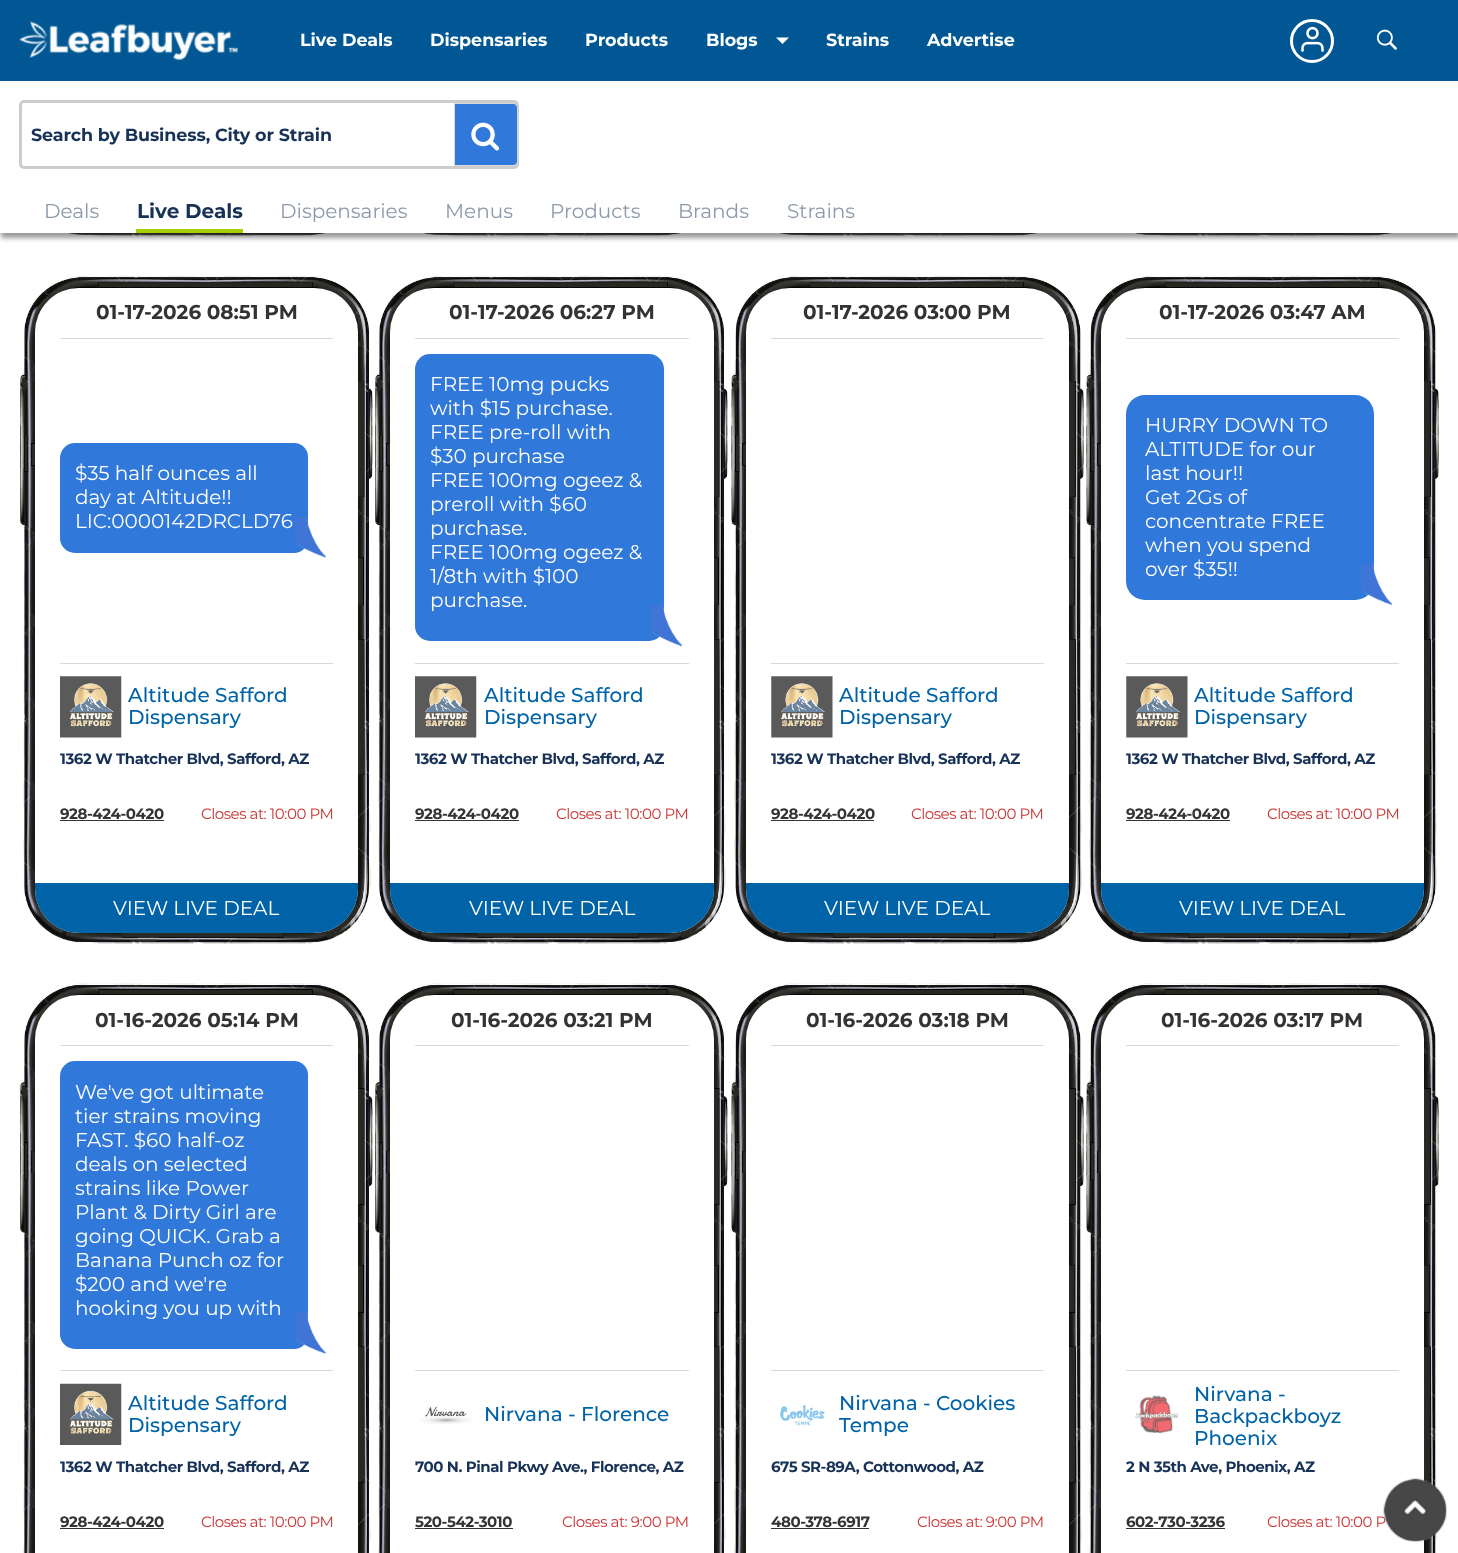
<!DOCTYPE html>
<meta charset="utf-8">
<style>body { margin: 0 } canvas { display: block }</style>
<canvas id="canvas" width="1458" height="1553"></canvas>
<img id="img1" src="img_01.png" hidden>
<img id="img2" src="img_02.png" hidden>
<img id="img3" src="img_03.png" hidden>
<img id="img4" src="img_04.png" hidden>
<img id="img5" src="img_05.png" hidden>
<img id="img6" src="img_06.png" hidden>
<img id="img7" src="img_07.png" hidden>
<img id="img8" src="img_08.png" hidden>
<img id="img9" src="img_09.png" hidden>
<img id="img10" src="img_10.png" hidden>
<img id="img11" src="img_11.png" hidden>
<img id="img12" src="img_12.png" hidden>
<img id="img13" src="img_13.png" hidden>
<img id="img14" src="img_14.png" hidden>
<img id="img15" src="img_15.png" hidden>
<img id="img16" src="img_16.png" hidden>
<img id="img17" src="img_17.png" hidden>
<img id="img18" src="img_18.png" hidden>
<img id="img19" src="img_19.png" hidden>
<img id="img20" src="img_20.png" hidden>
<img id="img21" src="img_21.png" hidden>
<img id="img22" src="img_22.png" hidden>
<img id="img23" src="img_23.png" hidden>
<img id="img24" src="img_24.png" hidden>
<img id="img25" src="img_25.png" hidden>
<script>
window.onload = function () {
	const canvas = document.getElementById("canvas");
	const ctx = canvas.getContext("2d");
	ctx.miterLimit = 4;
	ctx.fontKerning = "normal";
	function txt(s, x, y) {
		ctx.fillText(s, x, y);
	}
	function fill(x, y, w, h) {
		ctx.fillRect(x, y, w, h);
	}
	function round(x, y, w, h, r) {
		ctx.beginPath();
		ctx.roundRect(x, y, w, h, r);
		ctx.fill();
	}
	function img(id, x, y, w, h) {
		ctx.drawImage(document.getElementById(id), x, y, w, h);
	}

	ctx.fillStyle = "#FFFFFF";
	fill(0, 0, 1458, 1553);
	ctx.fillStyle = "#005793";
	fill(0, 0, 1458, 81);
	img("img1", 19, 21, 219, 39);
	ctx.fillStyle = "#FFFFFF";
	ctx.beginPath();
	ctx.moveTo(776, 37.5);
	ctx.lineTo(789, 37.5);
	ctx.lineTo(782.5, 44);
	ctx.closePath();
	ctx.fill();
	ctx.beginPath();
	ctx.arc(1312, 41, 20.5, 0, Math.PI * 2);
	ctx.strokeStyle = "#FFFFFF";
	ctx.lineWidth = 3;
	ctx.stroke();
	img("img2", 1301, 26, 23, 26);
	img("img3", 1376, 29, 21, 21);
	ctx.beginPath();
	ctx.roundRect(20.5, 101.5, 497, 66, 3.5);
	ctx.strokeStyle = "#CCCCCC";
	ctx.stroke();
	ctx.fillStyle = "#3078D9";
	ctx.beginPath();
	ctx.roundRect(454.5, 103.5, 63, 62, [0, 4.5, 4.5, 0]);
	ctx.fill();
	ctx.strokeStyle = "#D9D9DA";
	ctx.lineWidth = 1;
	ctx.stroke();
	img("img4", 471, 122, 29, 29);
	img("img5", 67, 233, 260, 4);
	img("img5", 422, 233, 260, 4);
	img("img6", 779, 233, 259, 4);
	img("img6", 1134, 233, 259, 4);
	ctx.fillStyle = "rgba(51, 51, 51, 0.5)";
	ctx.filter = "blur(2.5px)";
	ctx.beginPath();
	ctx.rect(1, 186, 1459, 52);
	ctx.fill();
	ctx.filter = "none";
	ctx.fillStyle = "#FFFFFF";
	fill(0, 181, 1458, 52);
	ctx.fillStyle = "#A4CF00";
	fill(136, 229, 107, 4);
	img("img7", 20, 275, 353, 669);
	ctx.fillStyle = "rgba(51, 51, 51, 0.5)";
	ctx.filter = "blur(2.5px)";
	ctx.beginPath();
	ctx.roundRect(35, 290, 323, 645, 44);
	ctx.fill();
	ctx.filter = "none";
	ctx.fillStyle = "#FFFFFF";
	round(35, 288, 323, 645, 44);
	ctx.fillStyle = "#D9D9DA";
	fill(60, 338, 273, 1);
	fill(60, 663, 273, 1);
	ctx.fillStyle = "#3078D9";
	ctx.beginPath();
	ctx.roundRect(60, 443, 15, 18, [15, 0, 0, 0]);
	ctx.fill();
	fill(75, 443, 219, 18);
	ctx.beginPath();
	ctx.roundRect(294, 443, 14, 18, [0, 14, 0, 0]);
	ctx.fill();
	ctx.beginPath();
	ctx.roundRect(60, 534, 15, 19, [0, 0, 0, 15]);
	ctx.fill();
	fill(75, 461, 219, 92);
	ctx.beginPath();
	ctx.roundRect(294, 534, 14, 19, [0, 0, 14, 0]);
	ctx.fill();
	fill(60, 461, 15, 73);
	fill(294, 461, 14, 73);
	img("img8", 295, 516, 32, 42);
	img("img9", 60, 676, 62, 62);
	ctx.fillStyle = "#333333";
	fill(60, 820, 104, 1);
	ctx.fillStyle = "#0063A7";
	ctx.beginPath();
	ctx.roundRect(35, 883, 323, 50, [0, 0, 44, 44]);
	ctx.fill();
	img("img10", 375, 275, 353, 669);
	ctx.fillStyle = "rgba(51, 51, 51, 0.5)";
	ctx.filter = "blur(2.5px)";
	ctx.beginPath();
	ctx.roundRect(390, 290, 324, 645, 44);
	ctx.fill();
	ctx.filter = "none";
	ctx.fillStyle = "#FFFFFF";
	round(390, 288, 324, 645, 44);
	ctx.fillStyle = "#D9D9DA";
	fill(415, 338, 274, 1);
	fill(415, 663, 274, 1);
	ctx.fillStyle = "#3078D9";
	ctx.beginPath();
	ctx.roundRect(415, 354, 15, 19, [15, 0, 0, 0]);
	ctx.fill();
	fill(430, 354, 219, 19);
	ctx.beginPath();
	ctx.roundRect(649, 354, 15, 19, [0, 15, 0, 0]);
	ctx.fill();
	ctx.beginPath();
	ctx.roundRect(415, 623, 15, 18, [0, 0, 0, 15]);
	ctx.fill();
	fill(430, 373, 219, 268);
	ctx.beginPath();
	ctx.roundRect(649, 623, 15, 18, [0, 0, 15, 0]);
	ctx.fill();
	fill(415, 373, 15, 250);
	fill(649, 373, 15, 250);
	img("img11", 651, 605, 32, 42);
	img("img12", 415, 676, 62, 62);
	ctx.fillStyle = "#333333";
	fill(415, 820, 104, 1);
	ctx.fillStyle = "#0063A7";
	ctx.beginPath();
	ctx.roundRect(390, 883, 324, 50, [0, 0, 44, 44]);
	ctx.fill();
	img("img13", 731, 275, 353, 669);
	ctx.fillStyle = "rgba(51, 51, 51, 0.5)";
	ctx.filter = "blur(2.5px)";
	ctx.beginPath();
	ctx.roundRect(746, 290, 323, 645, 44);
	ctx.fill();
	ctx.filter = "none";
	ctx.fillStyle = "#FFFFFF";
	round(746, 288, 323, 645, 44);
	ctx.fillStyle = "#D9D9DA";
	fill(771, 338, 273, 1);
	fill(771, 663, 273, 1);
	img("img14", 771, 676, 62, 62);
	ctx.fillStyle = "#333333";
	fill(771, 820, 103, 1);
	ctx.fillStyle = "#0063A7";
	ctx.beginPath();
	ctx.roundRect(746, 883, 323, 50, [0, 0, 44, 44]);
	ctx.fill();
	img("img13", 1086, 275, 353, 669);
	ctx.fillStyle = "rgba(51, 51, 51, 0.5)";
	ctx.filter = "blur(2.5px)";
	ctx.beginPath();
	ctx.roundRect(1101, 290, 323, 645, 44);
	ctx.fill();
	ctx.filter = "none";
	ctx.fillStyle = "#FFFFFF";
	round(1101, 288, 323, 645, 44);
	ctx.fillStyle = "#D9D9DA";
	fill(1126, 338, 273, 1);
	fill(1126, 663, 273, 1);
	ctx.fillStyle = "#3078D9";
	ctx.beginPath();
	ctx.roundRect(1126, 395, 19, 19, [19, 0, 0, 0]);
	ctx.fill();
	fill(1145, 395, 210, 19);
	ctx.beginPath();
	ctx.roundRect(1355, 395, 19, 19, [0, 19, 0, 0]);
	ctx.fill();
	ctx.beginPath();
	ctx.roundRect(1126, 581, 19, 19, [0, 0, 0, 19]);
	ctx.fill();
	fill(1145, 414, 210, 186);
	ctx.beginPath();
	ctx.roundRect(1355, 581, 19, 19, [0, 0, 19, 0]);
	ctx.fill();
	fill(1126, 414, 19, 167);
	fill(1355, 414, 19, 167);
	img("img15", 1361, 563, 32, 42);
	img("img16", 1126, 676, 62, 62);
	ctx.fillStyle = "#333333";
	fill(1126, 820, 104, 1);
	ctx.fillStyle = "#0063A7";
	ctx.beginPath();
	ctx.roundRect(1101, 883, 323, 50, [0, 0, 44, 44]);
	ctx.fill();
	img("img17", 20, 983, 353, 570);
	ctx.fillStyle = "rgba(51, 51, 51, 0.5)";
	ctx.filter = "blur(2.5px)";
	ctx.beginPath();
	ctx.roundRect(35, 998, 323, 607, 44);
	ctx.fill();
	ctx.filter = "none";
	ctx.fillStyle = "#FFFFFF";
	round(35, 995, 323, 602, 44);
	ctx.fillStyle = "#D9D9DA";
	fill(60, 1045, 273, 1);
	fill(60, 1370, 273, 1);
	ctx.fillStyle = "#3078D9";
	ctx.beginPath();
	ctx.roundRect(60, 1061, 15, 19, [15, 0, 0, 0]);
	ctx.fill();
	fill(75, 1061, 219, 19);
	ctx.beginPath();
	ctx.roundRect(294, 1061, 14, 19, [0, 14, 0, 0]);
	ctx.fill();
	ctx.beginPath();
	ctx.roundRect(60, 1330, 15, 19, [0, 0, 0, 15]);
	ctx.fill();
	fill(75, 1080, 219, 269);
	ctx.beginPath();
	ctx.roundRect(294, 1330, 14, 19, [0, 0, 14, 0]);
	ctx.fill();
	fill(60, 1080, 15, 250);
	fill(294, 1080, 14, 250);
	img("img18", 295, 1312, 32, 42);
	img("img19", 60, 1383, 62, 62);
	ctx.fillStyle = "#333333";
	fill(60, 1528, 104, 1);
	img("img20", 375, 983, 353, 570);
	ctx.fillStyle = "rgba(51, 51, 51, 0.5)";
	ctx.filter = "blur(2.5px)";
	ctx.beginPath();
	ctx.roundRect(390, 998, 324, 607, 44);
	ctx.fill();
	ctx.filter = "none";
	ctx.fillStyle = "#FFFFFF";
	round(390, 995, 324, 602, 44);
	ctx.fillStyle = "#D9D9DA";
	fill(415, 1045, 274, 1);
	fill(415, 1370, 274, 1);
	img("img21", 420, 1406, 52, 18);
	ctx.fillStyle = "#333333";
	fill(415, 1528, 98, 1);
	img("img22", 731, 983, 353, 570);
	ctx.fillStyle = "rgba(51, 51, 51, 0.5)";
	ctx.filter = "blur(2.5px)";
	ctx.beginPath();
	ctx.roundRect(746, 998, 323, 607, 44);
	ctx.fill();
	ctx.filter = "none";
	ctx.fillStyle = "#FFFFFF";
	round(746, 995, 323, 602, 44);
	ctx.fillStyle = "#D9D9DA";
	fill(771, 1045, 273, 1);
	fill(771, 1370, 273, 1);
	img("img23", 780, 1405, 45, 21);
	ctx.fillStyle = "#333333";
	fill(771, 1528, 98, 1);
	img("img22", 1086, 983, 353, 570);
	ctx.fillStyle = "rgba(51, 51, 51, 0.5)";
	ctx.filter = "blur(2.5px)";
	ctx.beginPath();
	ctx.roundRect(1101, 998, 323, 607, 44);
	ctx.fill();
	ctx.filter = "none";
	ctx.fillStyle = "#FFFFFF";
	round(1101, 995, 323, 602, 44);
	ctx.fillStyle = "#D9D9DA";
	fill(1126, 1045, 273, 1);
	fill(1126, 1370, 273, 1);
	img("img24", 1135, 1395, 44, 39);
	ctx.fillStyle = "#333333";
	fill(1126, 1528, 99, 1);
	ctx.font = "bold 17.5px Montserrat";
	ctx.fillStyle = "#FFFFFF";
	txt("Live Deals", 300, 46);
	txt("Dispensaries", 430, 46);
	txt("Products", 585, 46);
	txt("Blogs", 706, 46);
	txt("Strains", 826, 46);
	txt("Advertise", 927, 46);
	ctx.letterSpacing = "-0.1px";
	ctx.fillStyle = "#183257";
	txt("Search by Business, City or Strain", 31, 141);
	ctx.letterSpacing = "0px";
	ctx.font = "20px Montserrat";
	ctx.fillStyle = "#8D9AAB";
	txt("Deals", 44, 218);
	ctx.font = "bold 20px Montserrat";
	ctx.fillStyle = "#183257";
	txt("Live Deals", 137, 218);
	ctx.font = "20px Montserrat";
	ctx.fillStyle = "#8D9AAB";
	txt("Dispensaries", 280, 218);
	txt("Menus", 445, 218);
	txt("Products", 550, 218);
	txt("Brands", 678, 218);
	txt("Strains", 787, 218);
	ctx.font = "bold 20px Montserrat";
	ctx.fillStyle = "#333333";
	txt("01-17-2026 08:51 PM", 96, 319);
	ctx.font = "20px Montserrat";
	ctx.fillStyle = "#FFFFFF";
	txt("$35 half ounces all", 75, 480);
	txt("day at Altitude!!", 75, 504);
	txt("LIC:0000142DRCLD76", 75, 528);
	ctx.font = "500 20px Montserrat";
	ctx.fillStyle = "#0063A7";
	txt("Altitude Safford", 128, 702);
	txt("Dispensary", 128, 724);
	ctx.letterSpacing = "-0.45px";
	ctx.font = "bold 15px Montserrat";
	ctx.fillStyle = "#183257";
	txt("1362 W Thatcher Blvd, Safford, AZ", 60, 764);
	ctx.fillStyle = "#333333";
	txt("928-424-0420", 60, 819);
	ctx.font = "15px Montserrat";
	ctx.fillStyle = "#CC3333";
	txt("Closes at: 10:00 PM", 201, 819);
	ctx.letterSpacing = "0px";
	ctx.font = "20px Montserrat";
	ctx.fillStyle = "#FFFFFF";
	txt("VIEW LIVE DEAL", 113, 915);
	ctx.font = "bold 20px Montserrat";
	ctx.fillStyle = "#333333";
	txt("01-17-2026 06:27 PM", 449, 319);
	ctx.font = "20px Montserrat";
	ctx.fillStyle = "#FFFFFF";
	txt("FREE 10mg pucks", 430, 391);
	txt("with $15 purchase.", 430, 415);
	txt("FREE pre-roll with", 430, 439);
	txt("$30 purchase", 430, 463);
	txt("FREE 100mg ogeez &", 430, 487);
	txt("preroll with $60", 430, 511);
	txt("purchase.", 430, 535);
	txt("FREE 100mg ogeez &", 430, 559);
	txt("1/8th with $100", 430, 583);
	txt("purchase.", 430, 607);
	ctx.font = "500 20px Montserrat";
	ctx.fillStyle = "#0063A7";
	txt("Altitude Safford", 484, 702);
	txt("Dispensary", 484, 724);
	ctx.letterSpacing = "-0.45px";
	ctx.font = "bold 15px Montserrat";
	ctx.fillStyle = "#183257";
	txt("1362 W Thatcher Blvd, Safford, AZ", 415, 764);
	ctx.fillStyle = "#333333";
	txt("928-424-0420", 415, 819);
	ctx.font = "15px Montserrat";
	ctx.fillStyle = "#CC3333";
	txt("Closes at: 10:00 PM", 556, 819);
	ctx.letterSpacing = "0px";
	ctx.font = "20px Montserrat";
	ctx.fillStyle = "#FFFFFF";
	txt("VIEW LIVE DEAL", 469, 915);
	ctx.font = "bold 20px Montserrat";
	ctx.fillStyle = "#333333";
	txt("01-17-2026 03:00 PM", 803, 319);
	ctx.font = "500 20px Montserrat";
	ctx.fillStyle = "#0063A7";
	txt("Altitude Safford", 839, 702);
	txt("Dispensary", 839, 724);
	ctx.letterSpacing = "-0.45px";
	ctx.font = "bold 15px Montserrat";
	ctx.fillStyle = "#183257";
	txt("1362 W Thatcher Blvd, Safford, AZ", 771, 764);
	ctx.fillStyle = "#333333";
	txt("928-424-0420", 771, 819);
	ctx.font = "15px Montserrat";
	ctx.fillStyle = "#CC3333";
	txt("Closes at: 10:00 PM", 911, 819);
	ctx.letterSpacing = "0px";
	ctx.font = "20px Montserrat";
	ctx.fillStyle = "#FFFFFF";
	txt("VIEW LIVE DEAL", 824, 915);
	ctx.font = "bold 20px Montserrat";
	ctx.fillStyle = "#333333";
	txt("01-17-2026 03:47 AM", 1159, 319);
	ctx.font = "20px Montserrat";
	ctx.fillStyle = "#FFFFFF";
	txt("HURRY DOWN TO", 1145, 432);
	txt("ALTITUDE for our", 1145, 456);
	txt("last hour!!", 1145, 480);
	txt("Get 2Gs of", 1145, 504);
	txt("concentrate FREE", 1145, 528);
	txt("when you spend", 1145, 552);
	txt("over $35!!", 1145, 576);
	ctx.font = "500 20px Montserrat";
	ctx.fillStyle = "#0063A7";
	txt("Altitude Safford", 1194, 702);
	txt("Dispensary", 1194, 724);
	ctx.letterSpacing = "-0.45px";
	ctx.font = "bold 15px Montserrat";
	ctx.fillStyle = "#183257";
	txt("1362 W Thatcher Blvd, Safford, AZ", 1126, 764);
	ctx.fillStyle = "#333333";
	txt("928-424-0420", 1126, 819);
	ctx.font = "15px Montserrat";
	ctx.fillStyle = "#CC3333";
	txt("Closes at: 10:00 PM", 1267, 819);
	ctx.letterSpacing = "0px";
	ctx.font = "20px Montserrat";
	ctx.fillStyle = "#FFFFFF";
	txt("VIEW LIVE DEAL", 1179, 915);
	ctx.font = "bold 20px Montserrat";
	ctx.fillStyle = "#333333";
	txt("01-16-2026 05:14 PM", 95, 1027);
	ctx.font = "20px Montserrat";
	ctx.fillStyle = "#FFFFFF";
	txt("We've got ultimate", 75, 1099);
	txt("tier strains moving", 75, 1123);
	txt("FAST. $60 half-oz", 75, 1147);
	txt("deals on selected", 75, 1171);
	txt("strains like Power", 75, 1195);
	txt("Plant & Dirty Girl are", 75, 1219);
	txt("going QUICK. Grab a", 75, 1243);
	txt("Banana Punch oz for", 75, 1267);
	txt("$200 and we're", 75, 1291);
	txt("hooking you up with", 75, 1315);
	ctx.font = "500 20px Montserrat";
	ctx.fillStyle = "#0063A7";
	txt("Altitude Safford", 128, 1410);
	txt("Dispensary", 128, 1432);
	ctx.letterSpacing = "-0.45px";
	ctx.font = "bold 15px Montserrat";
	ctx.fillStyle = "#183257";
	txt("1362 W Thatcher Blvd, Safford, AZ", 60, 1472);
	ctx.fillStyle = "#333333";
	txt("928-424-0420", 60, 1527);
	ctx.font = "15px Montserrat";
	ctx.fillStyle = "#CC3333";
	txt("Closes at: 10:00 PM", 201, 1527);
	ctx.letterSpacing = "0px";
	ctx.font = "bold 20px Montserrat";
	ctx.fillStyle = "#333333";
	txt("01-16-2026 03:21 PM", 451, 1027);
	ctx.font = "500 20px Montserrat";
	ctx.fillStyle = "#0063A7";
	txt("Nirvana - Florence", 484, 1421);
	ctx.letterSpacing = "-0.45px";
	ctx.font = "bold 15px Montserrat";
	ctx.fillStyle = "#183257";
	txt("700 N. Pinal Pkwy Ave., Florence, AZ", 415, 1472);
	ctx.fillStyle = "#333333";
	txt("520-542-3010", 415, 1527);
	ctx.font = "15px Montserrat";
	ctx.fillStyle = "#CC3333";
	txt("Closes at: 9:00 PM", 562, 1527);
	ctx.letterSpacing = "0px";
	ctx.font = "bold 20px Montserrat";
	ctx.fillStyle = "#333333";
	txt("01-16-2026 03:18 PM", 806, 1027);
	ctx.font = "500 20px Montserrat";
	ctx.fillStyle = "#0063A7";
	txt("Nirvana - Cookies", 839, 1410);
	txt("Tempe", 839, 1432);
	ctx.letterSpacing = "-0.45px";
	ctx.font = "bold 15px Montserrat";
	ctx.fillStyle = "#183257";
	txt("675 SR-89A, Cottonwood, AZ", 771, 1472);
	ctx.fillStyle = "#333333";
	txt("480-378-6917", 771, 1527);
	ctx.font = "15px Montserrat";
	ctx.fillStyle = "#CC3333";
	txt("Closes at: 9:00 PM", 917, 1527);
	ctx.letterSpacing = "0px";
	ctx.font = "bold 20px Montserrat";
	ctx.fillStyle = "#333333";
	txt("01-16-2026 03:17 PM", 1161, 1027);
	ctx.font = "500 20px Montserrat";
	ctx.fillStyle = "#0063A7";
	txt("Nirvana -", 1194, 1401);
	txt("Backpackboyz", 1194, 1423);
	txt("Phoenix", 1194, 1445);
	ctx.letterSpacing = "-0.45px";
	ctx.font = "bold 15px Montserrat";
	ctx.fillStyle = "#183257";
	txt("2 N 35th Ave, Phoenix, AZ", 1126, 1472);
	ctx.fillStyle = "#333333";
	txt("602-730-3236", 1126, 1527);
	ctx.font = "15px Montserrat";
	ctx.fillStyle = "#CC3333";
	txt("Closes at: 10:00 P", 1267, 1527);
	img("img25", 1383, 1478, 64, 64);
};
</script>
